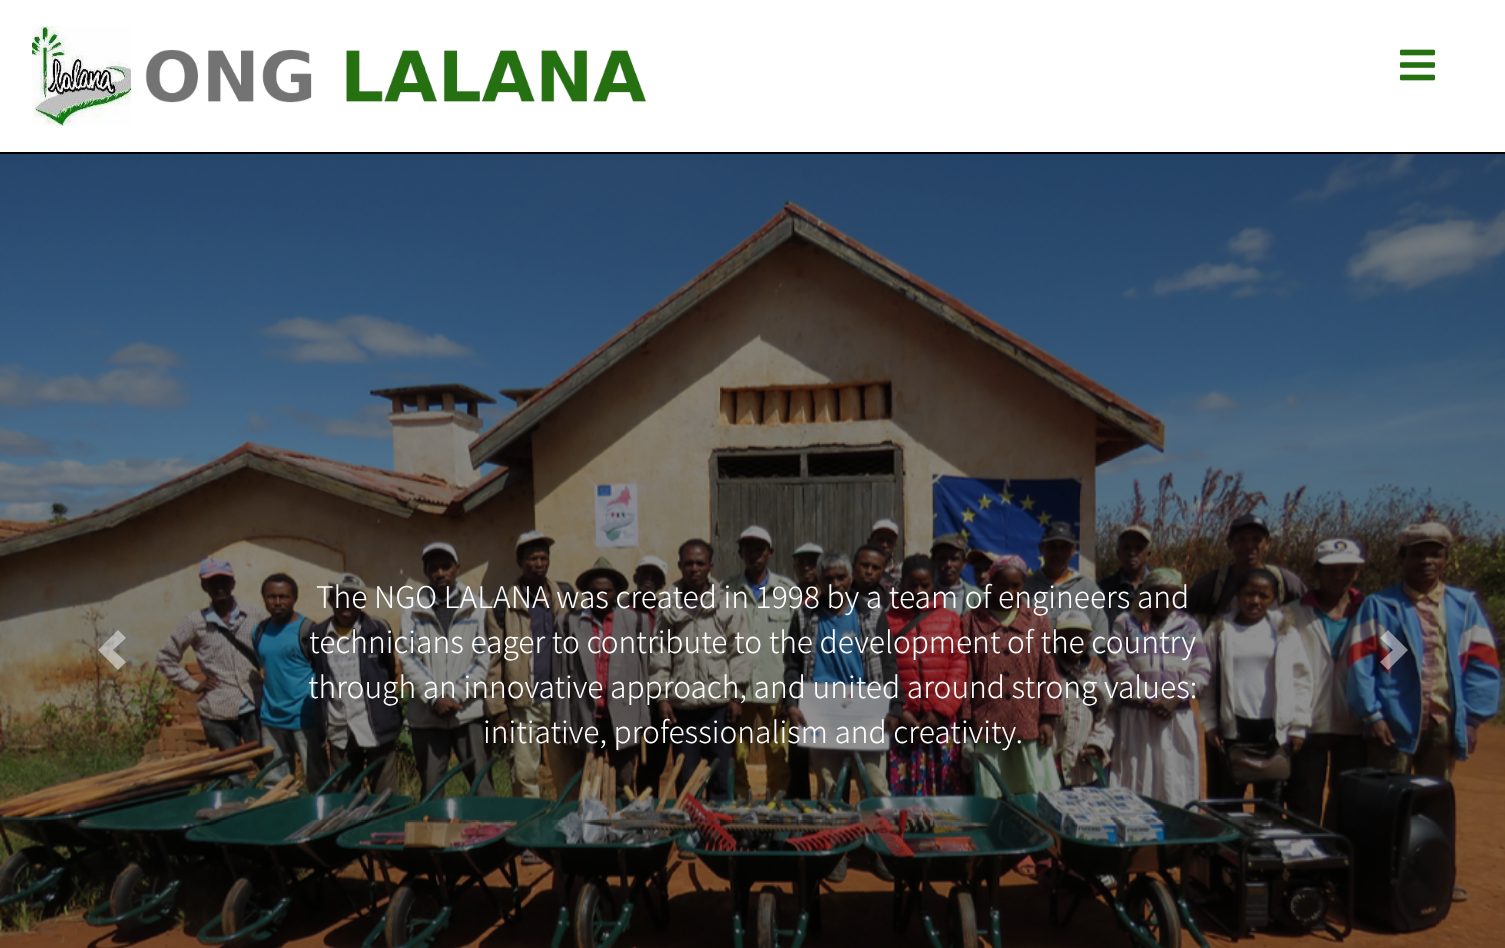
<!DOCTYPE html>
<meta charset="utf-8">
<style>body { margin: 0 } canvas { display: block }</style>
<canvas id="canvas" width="1505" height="948"></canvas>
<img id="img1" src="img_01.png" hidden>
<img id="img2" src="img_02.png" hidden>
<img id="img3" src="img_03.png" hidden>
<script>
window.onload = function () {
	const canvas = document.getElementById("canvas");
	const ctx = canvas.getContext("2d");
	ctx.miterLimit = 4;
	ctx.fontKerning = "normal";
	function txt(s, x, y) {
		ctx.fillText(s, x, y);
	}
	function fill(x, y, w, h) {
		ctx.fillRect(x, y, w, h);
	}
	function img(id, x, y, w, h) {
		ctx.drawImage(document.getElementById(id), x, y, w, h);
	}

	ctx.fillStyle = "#FFFFFF";
	fill(0, 0, 1505, 948);
	ctx.fillStyle = "#000000";
	fill(0, 152, 1505, 2);
	img("img1", 32, 26, 614, 100);
	img("img2", 1400, 49, 35, 32);
	img("img3", 0, 154, 1505, 794);
	ctx.fillStyle = "rgba(255, 255, 255, 0.5)";
	ctx.beginPath();
	ctx.moveTo(118, 630);
	ctx.lineTo(98, 650);
	ctx.lineTo(118, 670);
	ctx.lineTo(126, 662);
	ctx.lineTo(113, 650);
	ctx.lineTo(126, 638);
	ctx.closePath();
	ctx.fill();
	ctx.beginPath();
	ctx.moveTo(1388, 630);
	ctx.lineTo(1380, 638);
	ctx.lineTo(1393, 650);
	ctx.lineTo(1380, 662);
	ctx.lineTo(1388, 670);
	ctx.lineTo(1408, 650);
	ctx.closePath();
	ctx.fill();
	ctx.font = "100 30px Noto Sans HK";
	ctx.fillStyle = "#FFFFFF";
	txt("The NGO LALANA was created in 1998 by a team of engineers and", 316, 608);
	txt("technicians eager to contribute to the development of the country", 309, 653);
	txt("through an innovative approach, and united around strong values:", 308, 698);
	txt("initiative, professionalism and creativity.", 483, 743);
};
</script>
